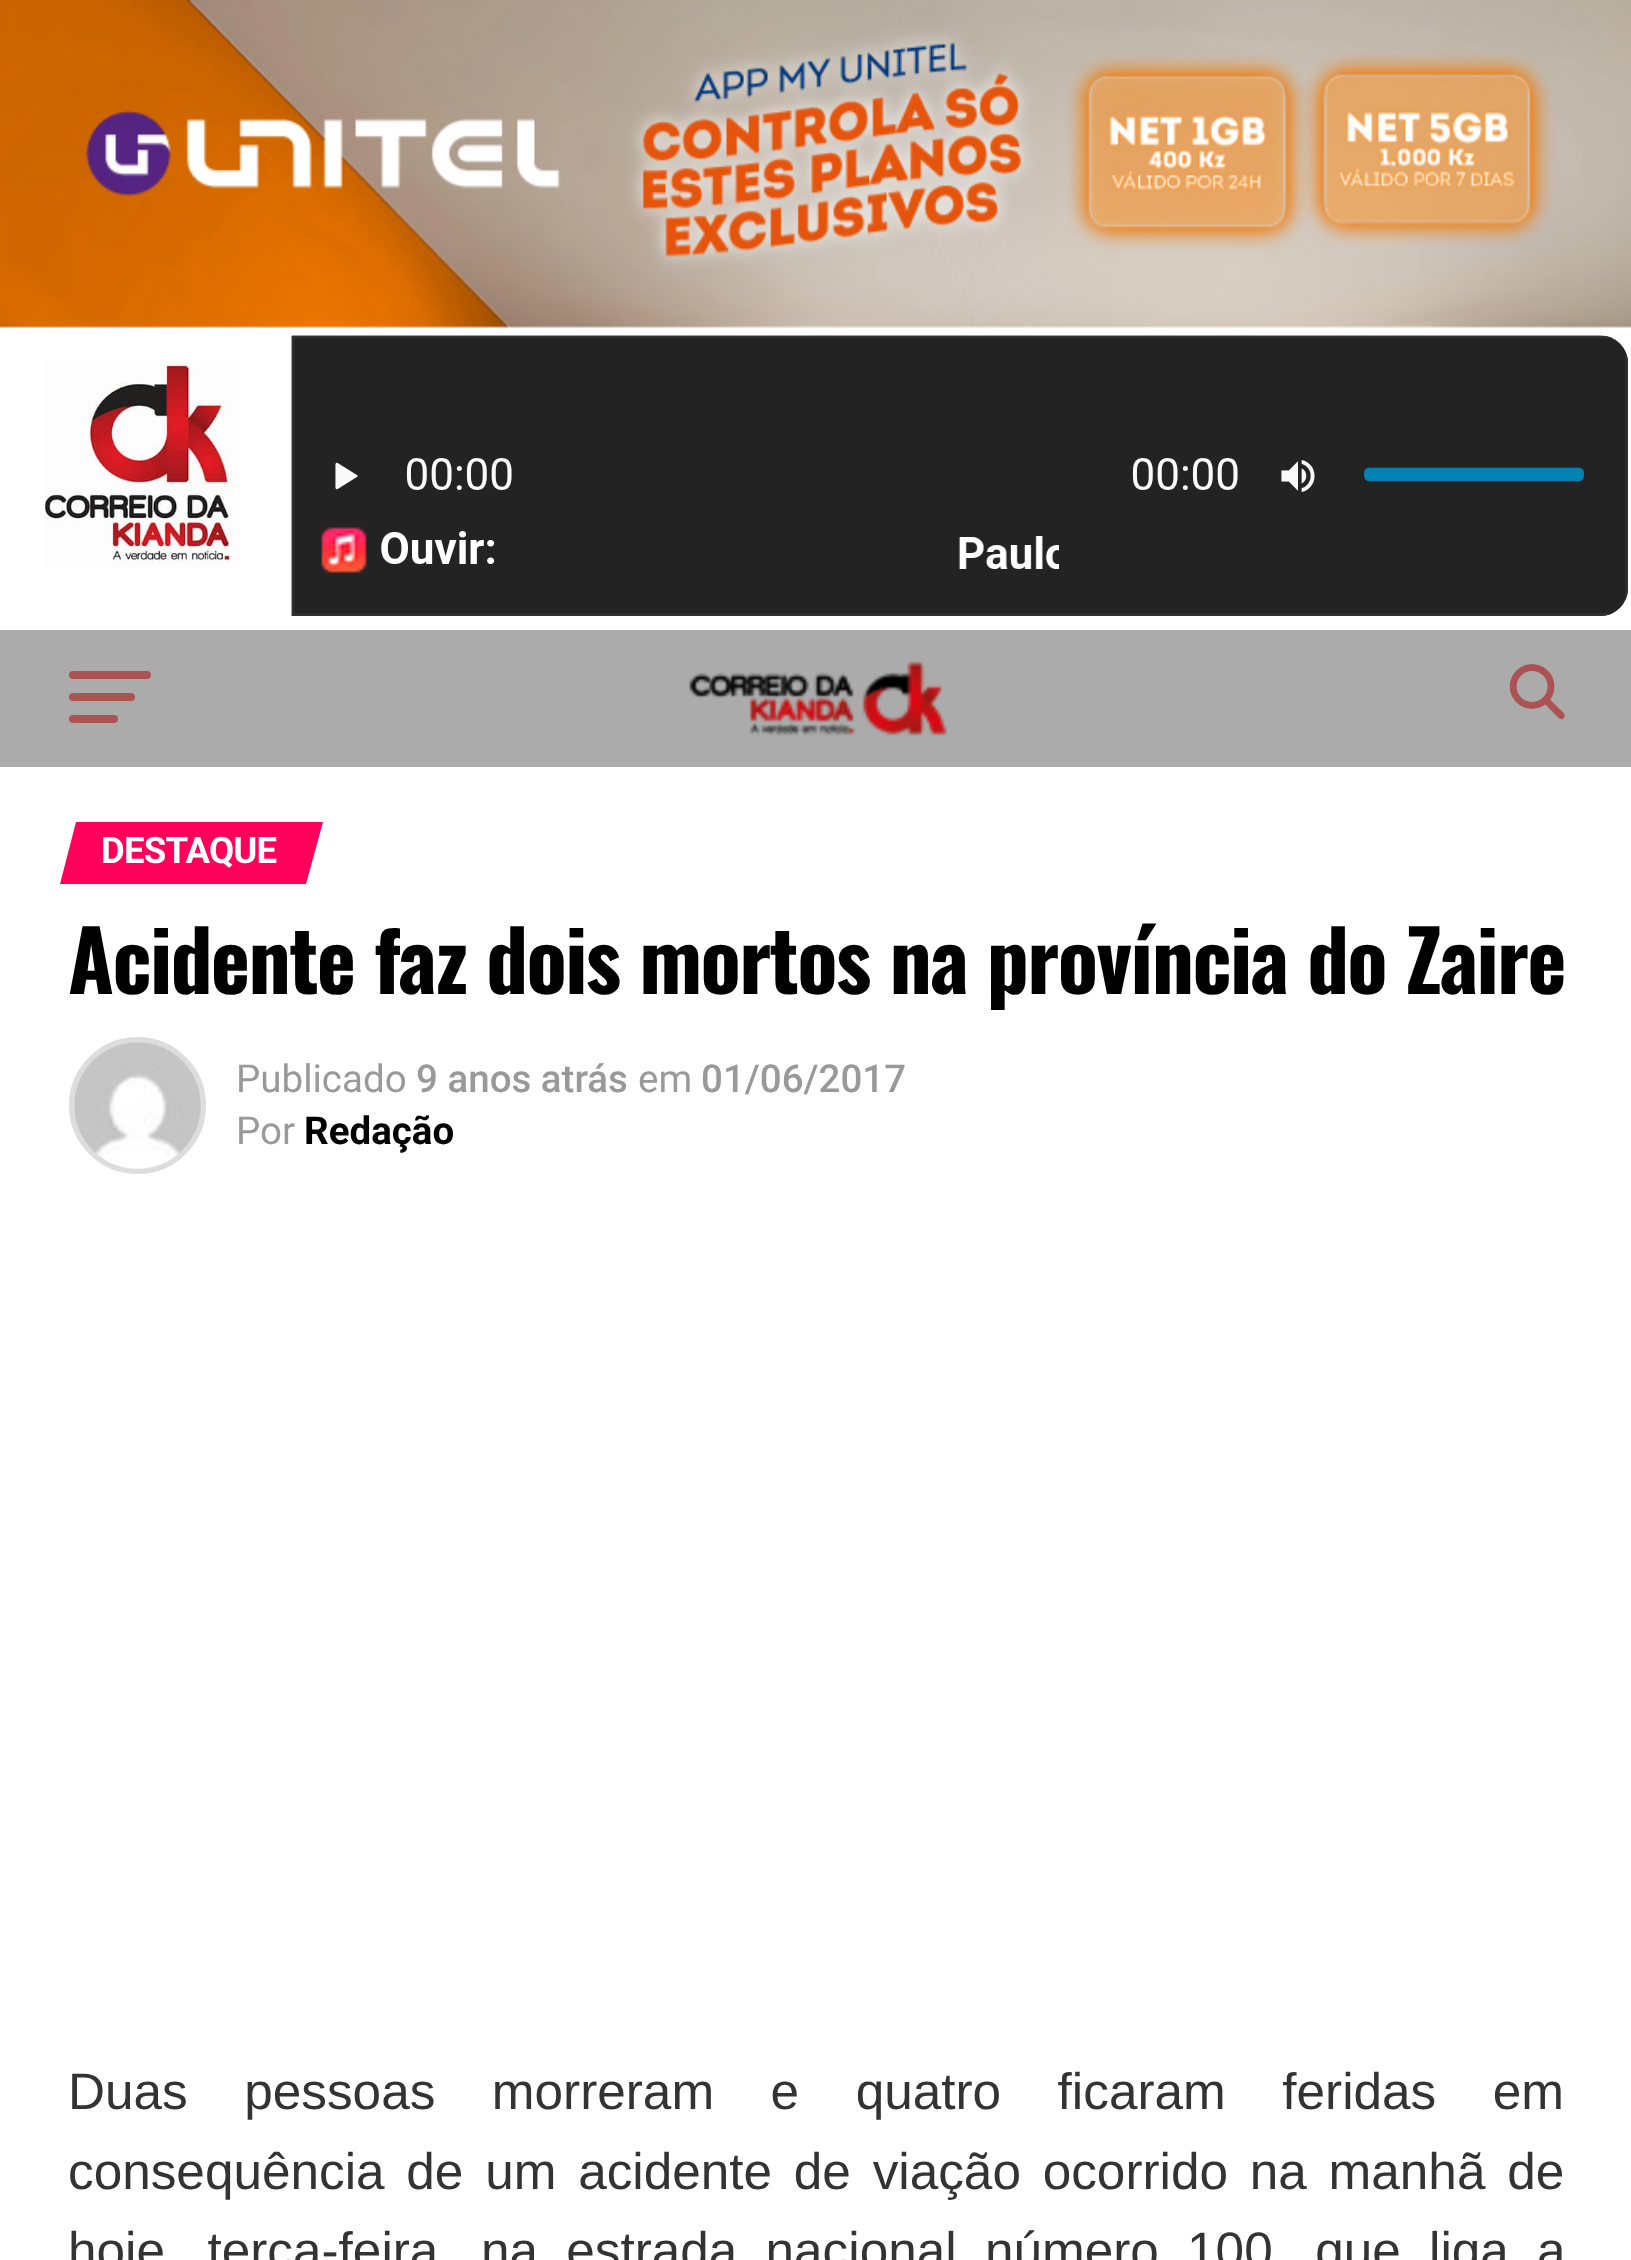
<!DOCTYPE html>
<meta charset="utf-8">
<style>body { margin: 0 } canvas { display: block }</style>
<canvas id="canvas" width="1631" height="2260"></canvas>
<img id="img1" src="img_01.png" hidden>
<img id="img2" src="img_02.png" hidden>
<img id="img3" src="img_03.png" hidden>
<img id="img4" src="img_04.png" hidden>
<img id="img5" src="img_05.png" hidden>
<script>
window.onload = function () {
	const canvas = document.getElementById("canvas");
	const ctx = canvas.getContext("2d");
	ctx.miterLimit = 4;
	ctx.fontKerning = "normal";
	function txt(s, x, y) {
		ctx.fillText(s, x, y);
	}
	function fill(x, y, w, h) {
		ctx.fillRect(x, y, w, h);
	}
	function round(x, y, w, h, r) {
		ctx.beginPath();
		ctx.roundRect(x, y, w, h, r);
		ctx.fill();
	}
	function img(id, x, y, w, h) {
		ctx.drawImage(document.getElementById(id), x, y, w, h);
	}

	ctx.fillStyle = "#FFFFFF";
	fill(0, 0, 1631, 2260);
	img("img1", 0, 0, 1631, 328);
	img("img2", 44, 335, 1584, 281);
	ctx.fillStyle = "#ABABAB";
	fill(0, 630, 1631, 137);
	ctx.fillStyle = "#AB5252";
	round(69, 671, 82, 8, 4);
	round(69, 693, 66, 8, 4);
	round(69, 715, 49, 8, 4);
	img("img3", 688, 661, 260, 75);
	img("img4", 1509, 664, 56, 56);
	ctx.fillStyle = "#FF005B";
	ctx.beginPath();
	ctx.moveTo(76, 822);
	ctx.lineTo(323, 822);
	ctx.lineTo(306, 884);
	ctx.lineTo(60, 884);
	ctx.closePath();
	ctx.fill();
	ctx.beginPath();
	ctx.arc(137.5, 1105.5, 65.5, 0, Math.PI * 2);
	ctx.strokeStyle = "#DDDDDD";
	ctx.lineWidth = 6;
	ctx.stroke();
	img("img5", 74, 1042, 127, 127);
	ctx.letterSpacing = "-0.75px";
	ctx.font = "bold 36.5px Roboto";
	ctx.fillStyle = "#FFFFFF";
	txt("DESTAQUE", 101, 863);
	ctx.letterSpacing = "-1.65px";
	ctx.font = "bold 83.6px Oswald";
	ctx.fillStyle = "#000000";
	txt("Acidente faz dois mortos na província do Zaire", 68, 994);
	ctx.letterSpacing = "0px";
	ctx.font = "38.5px Roboto";
	ctx.fillStyle = "#999999";
	txt("Publicado", 236, 1092);
	ctx.font = "500 38.5px Roboto";
	txt("9 anos atrás", 416, 1092);
	ctx.font = "38.5px Roboto";
	txt("em", 638, 1092);
	ctx.font = "500 38.5px Roboto";
	txt("01/06/2017", 701, 1092);
	ctx.font = "38.5px Roboto";
	txt("Por", 236, 1144);
	ctx.font = "bold 38.5px Roboto";
	ctx.fillStyle = "#000000";
	txt("Redação", 304, 1144);
	ctx.wordSpacing = "42.25px";
	ctx.font = "51.3px Liberation Sans";
	ctx.fillStyle = "#333333";
	txt("Duas pessoas morreram e quatro ficaram feridas em", 68, 2109);
	ctx.wordSpacing = "7.5px";
	txt("consequência de um acidente de viação ocorrido na manhã de", 68, 2189);
	ctx.wordSpacing = "14px";
	txt("hoje, terça-feira, na estrada nacional número 100, que liga a", 68, 2268);
};
</script>
